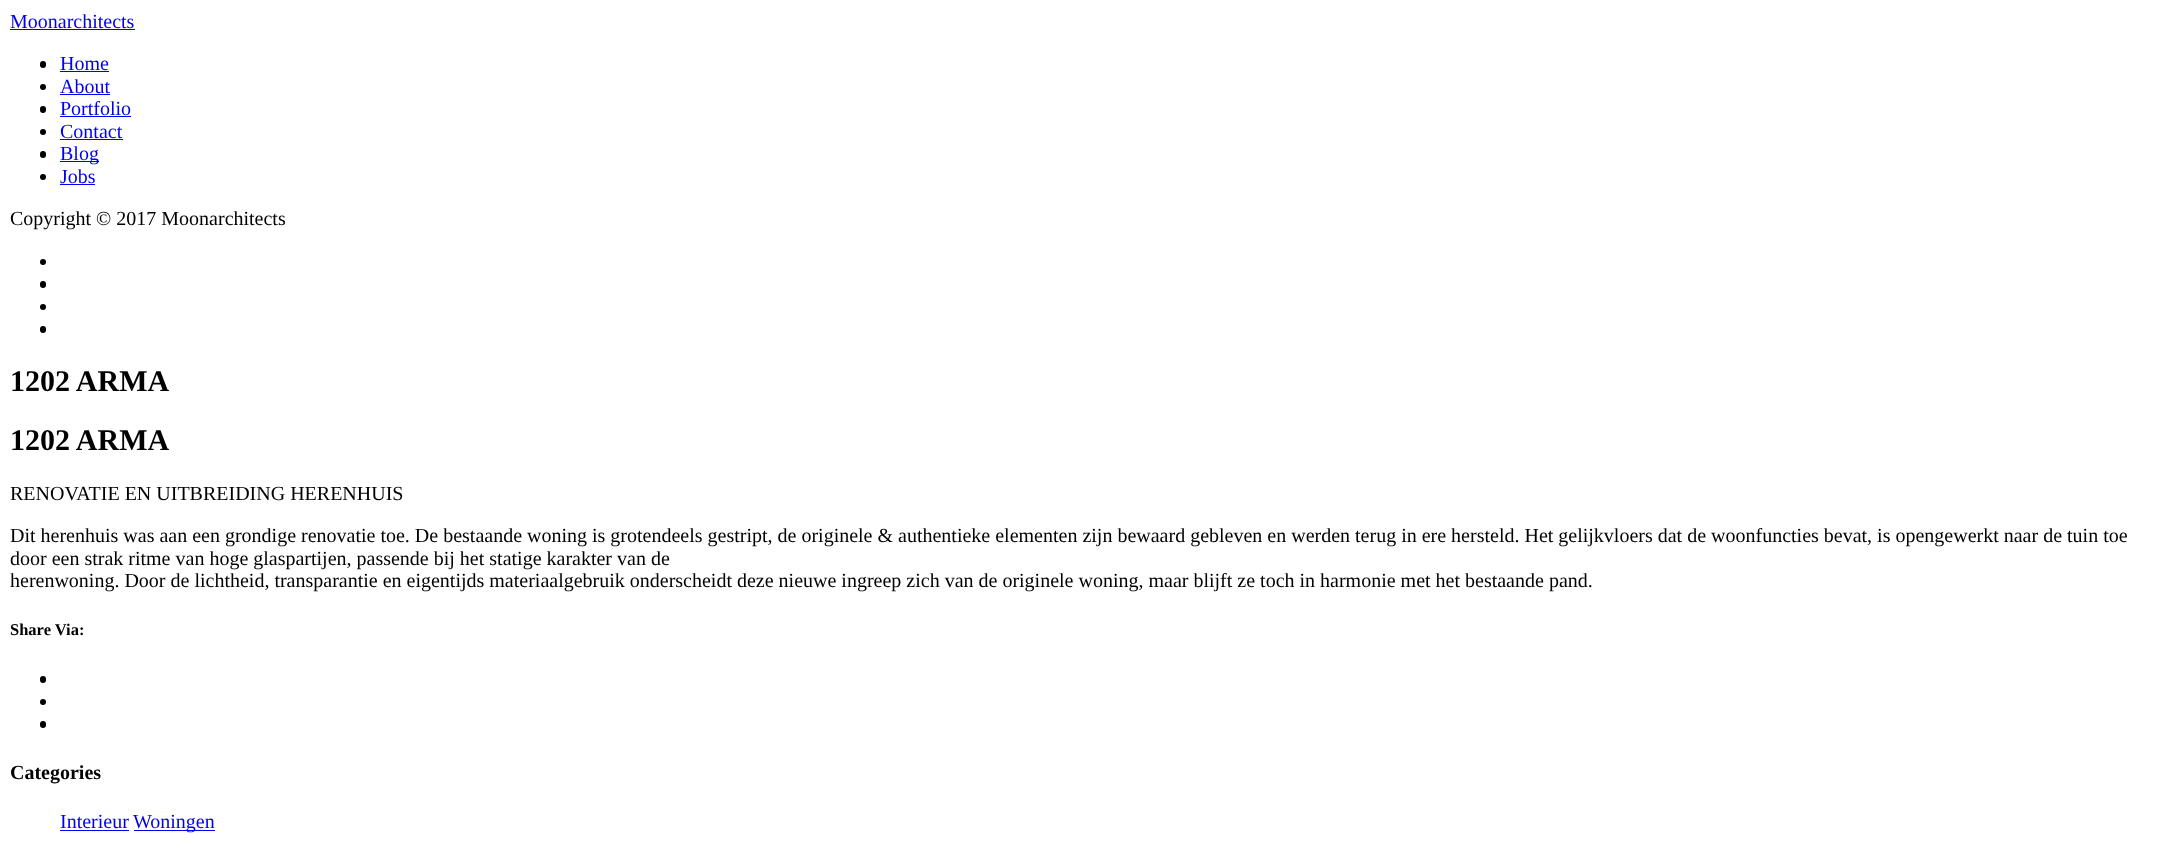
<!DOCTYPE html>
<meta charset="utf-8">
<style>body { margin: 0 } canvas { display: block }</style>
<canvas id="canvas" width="2164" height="852"></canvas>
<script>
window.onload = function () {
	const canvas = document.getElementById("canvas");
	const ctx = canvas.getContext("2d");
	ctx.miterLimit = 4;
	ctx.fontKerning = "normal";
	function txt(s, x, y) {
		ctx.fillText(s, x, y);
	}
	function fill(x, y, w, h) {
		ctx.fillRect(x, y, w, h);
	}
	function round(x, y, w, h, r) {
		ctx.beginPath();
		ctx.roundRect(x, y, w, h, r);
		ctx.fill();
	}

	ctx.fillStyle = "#FFFFFF";
	fill(0, 0, 2164, 852);
	ctx.fillStyle = "#0000EE";
	fill(10, 29, 125, 1);
	ctx.fillStyle = "#000000";
	round(40, 61, 6, 7, 3);
	ctx.fillStyle = "#0000EE";
	fill(60, 71, 49, 1);
	ctx.fillStyle = "#000000";
	ctx.beginPath();
	ctx.arc(43, 87, 3, 0, Math.PI * 2);
	ctx.fill();
	ctx.fillStyle = "#0000EE";
	fill(60, 94, 50, 1);
	ctx.fillStyle = "#000000";
	round(40, 106, 6, 7, 3);
	ctx.fillStyle = "#0000EE";
	fill(60, 116, 71, 1);
	ctx.fillStyle = "#000000";
	ctx.beginPath();
	ctx.arc(43, 132, 3, 0, Math.PI * 2);
	ctx.fill();
	ctx.fillStyle = "#0000EE";
	fill(60, 139, 63, 1);
	ctx.fillStyle = "#000000";
	round(40, 151, 6, 7, 3);
	ctx.fillStyle = "#0000EE";
	fill(60, 161, 39, 1);
	ctx.fillStyle = "#000000";
	ctx.beginPath();
	ctx.arc(43, 177, 3, 0, Math.PI * 2);
	ctx.fill();
	ctx.fillStyle = "#0000EE";
	fill(60, 184, 35, 1);
	ctx.fillStyle = "#000000";
	ctx.beginPath();
	ctx.arc(43, 262, 3, 0, Math.PI * 2);
	ctx.fill();
	round(40, 281, 6, 7, 3);
	ctx.beginPath();
	ctx.arc(43, 307, 3, 0, Math.PI * 2);
	ctx.fill();
	round(40, 326, 6, 7, 3);
	round(40, 676, 6, 7, 3);
	ctx.beginPath();
	ctx.arc(43, 702, 3, 0, Math.PI * 2);
	ctx.fill();
	round(40, 721, 6, 7, 3);
	ctx.fillStyle = "#0000EE";
	fill(60, 830, 69, 1);
	fill(134, 830, 81, 1);
	ctx.font = "20px Liberation Serif";
	txt("Moonarchitects", 10, 28);
	txt("Home", 60, 70);
	txt("About", 60, 93);
	txt("Portfolio", 60, 115);
	txt("Contact", 60, 138);
	txt("Blog", 60, 160);
	txt("Jobs", 60, 183);
	ctx.fillStyle = "#000000";
	txt("Copyright © 2017 Moonarchitects", 10, 225);
	ctx.font = "bold 30px Liberation Serif";
	txt("1202 ARMA", 10, 391);
	txt("1202 ARMA", 10, 450);
	ctx.font = "20px Liberation Serif";
	txt("RENOVATIE EN UITBREIDING HERENHUIS", 10, 500);
	txt("Dit herenhuis was aan een grondige renovatie toe. De bestaande woning is grotendeels gestript, de originele & authentieke elementen zijn bewaard gebleven en werden terug in ere hersteld. Het gelijkvloers dat de woonfuncties bevat, is opengewerkt naar de tuin toe", 10, 542);
	txt("door een strak ritme van hoge glaspartijen, passende bij het statige karakter van de", 10, 565);
	txt("herenwoning. Door de lichtheid, transparantie en eigentijds materiaalgebruik onderscheidt deze nieuwe ingreep zich van de originele woning, maar blijft ze toch in harmonie met het bestaande pand.", 10, 587);
	ctx.font = "bold 16.5px Liberation Serif";
	txt("Share Via:", 10, 635);
	ctx.font = "bold 20px Liberation Serif";
	txt("Categories", 10, 779);
	ctx.font = "20px Liberation Serif";
	ctx.fillStyle = "#0000EE";
	txt("Interieur", 60, 828);
	txt("Woningen", 133, 828);
};
</script>
